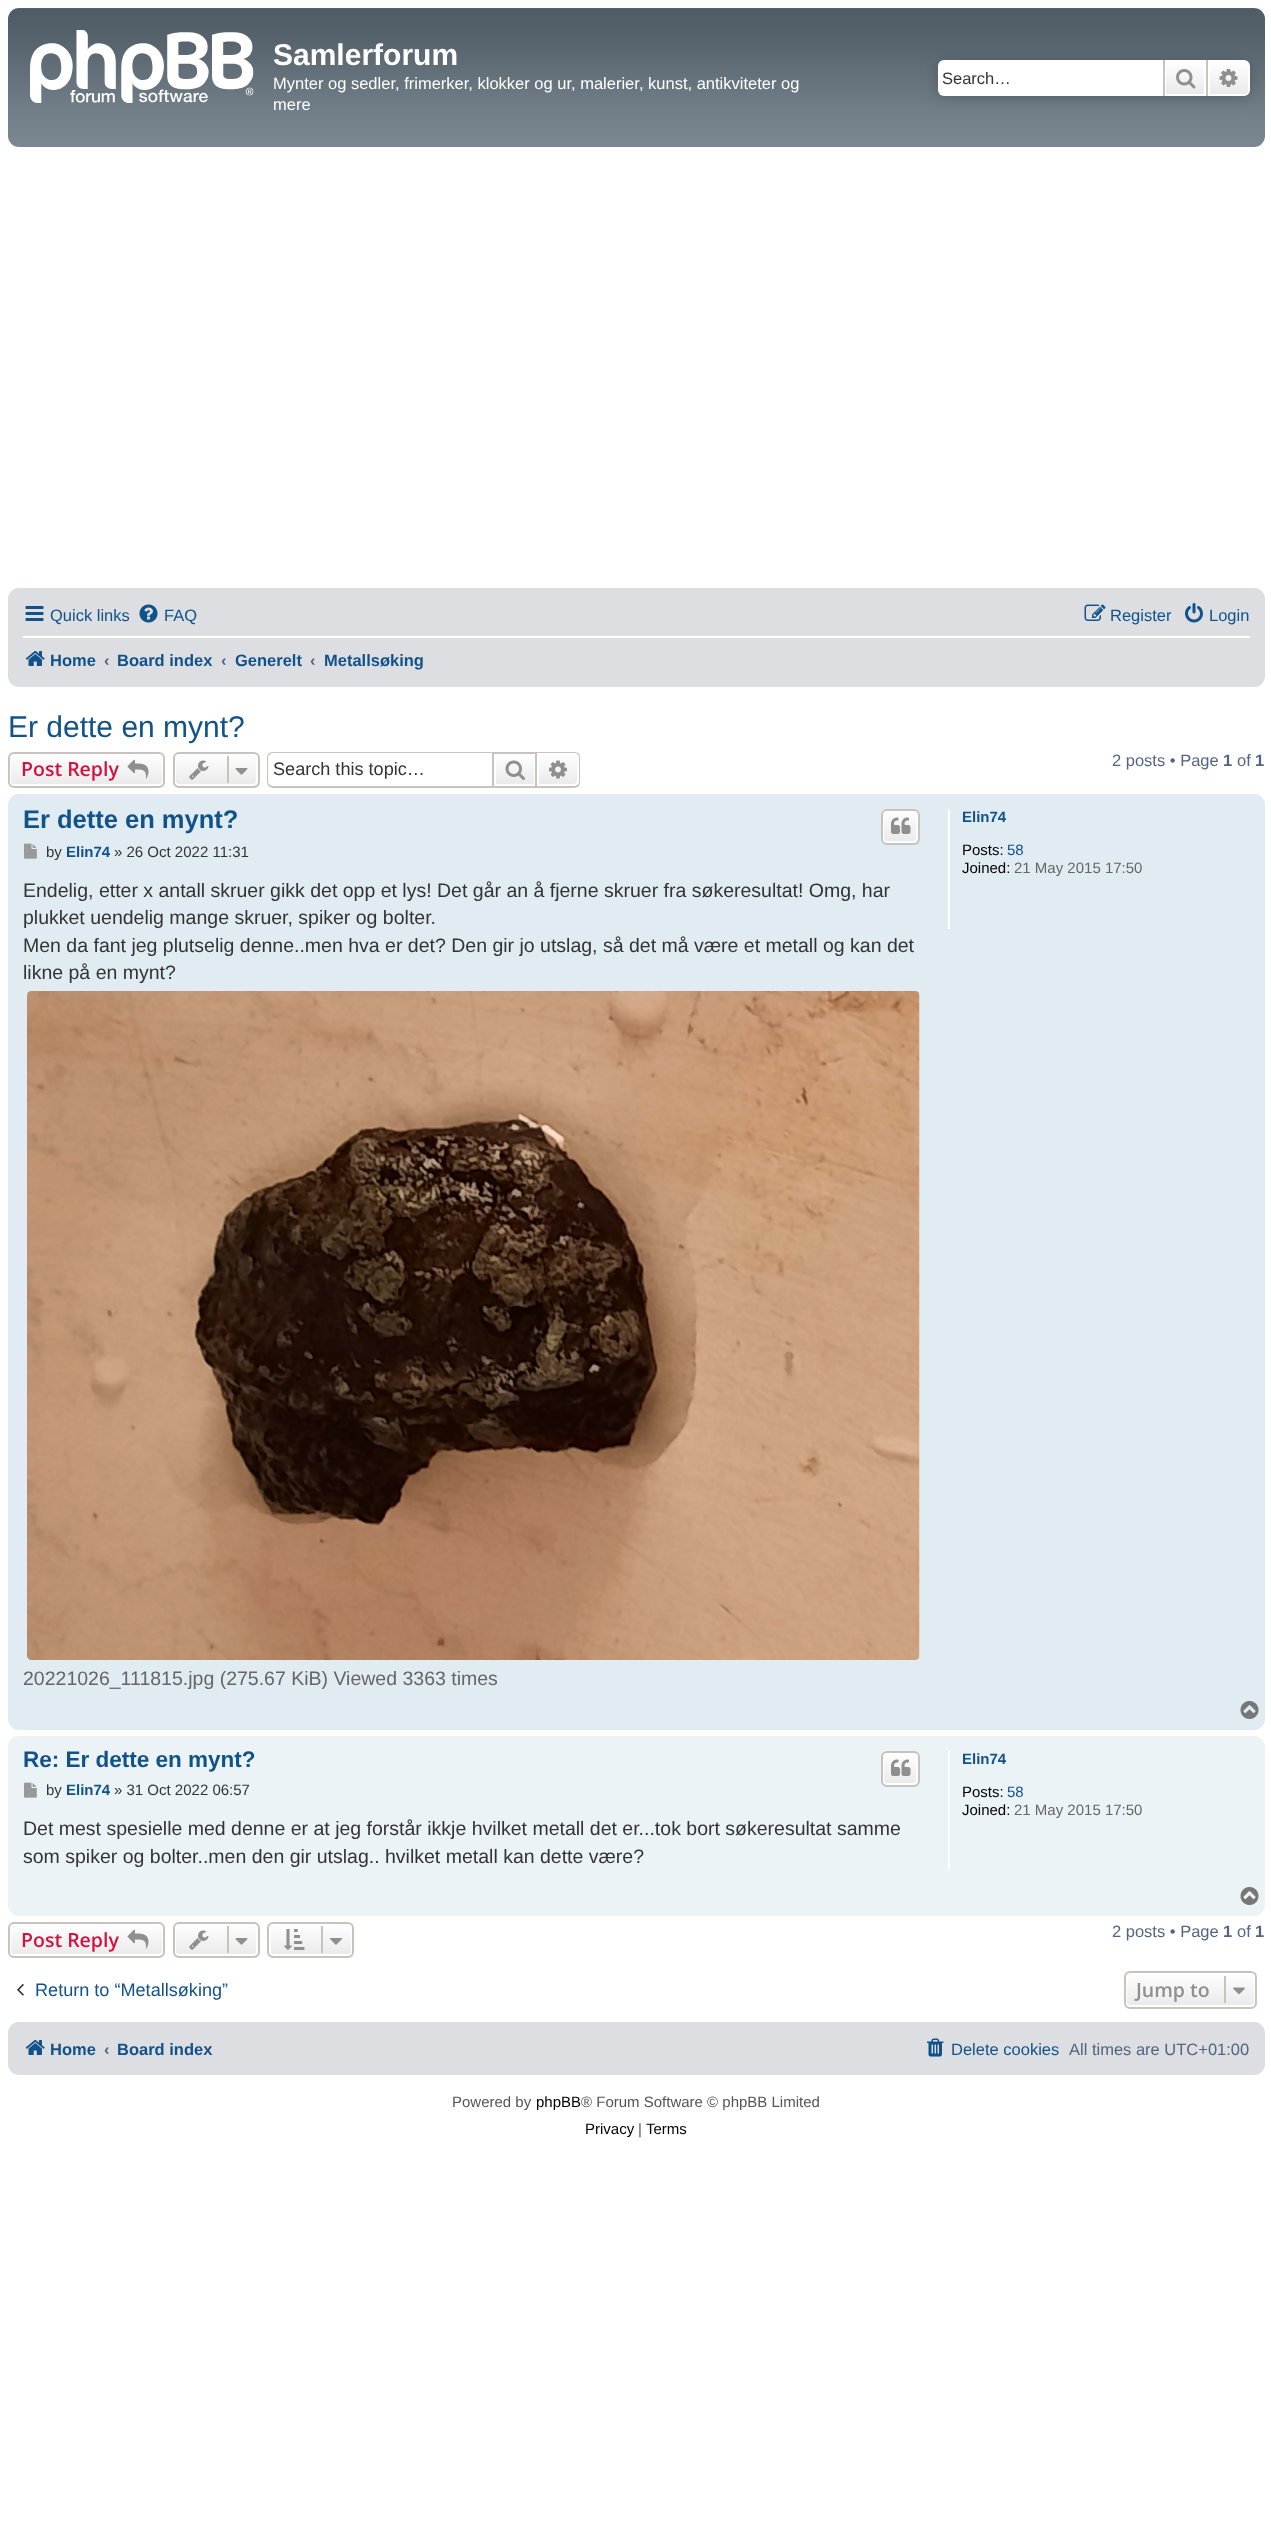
<!DOCTYPE html>
<meta charset="utf-8">
<style>body { margin: 0 } canvas { display: block }</style>
<canvas id="canvas" width="1271" height="2548"></canvas>
<img id="img1" src="img_01.png" hidden>
<img id="img2" src="img_02.png" hidden>
<img id="img3" src="img_03.png" hidden>
<img id="img4" src="img_04.png" hidden>
<img id="img5" src="img_05.png" hidden>
<img id="img6" src="img_06.png" hidden>
<img id="img7" src="img_07.png" hidden>
<img id="img8" src="img_08.png" hidden>
<img id="img9" src="img_09.png" hidden>
<img id="img10" src="img_10.png" hidden>
<img id="img11" src="img_11.png" hidden>
<img id="img12" src="img_12.png" hidden>
<img id="img13" src="img_13.png" hidden>
<img id="img14" src="img_14.png" hidden>
<img id="img15" src="img_15.png" hidden>
<img id="img16" src="img_16.png" hidden>
<img id="img17" src="img_17.png" hidden>
<img id="img18" src="img_18.png" hidden>
<img id="img19" src="img_19.png" hidden>
<img id="img20" src="img_20.png" hidden>
<img id="img21" src="img_21.png" hidden>
<img id="img22" src="img_22.png" hidden>
<img id="img23" src="img_23.png" hidden>
<img id="img24" src="img_24.png" hidden>
<script>
window.onload = function () {
	const canvas = document.getElementById("canvas");
	const ctx = canvas.getContext("2d");
	ctx.miterLimit = 4;
	ctx.fontKerning = "normal";
	function txt(s, x, y) {
		ctx.fillText(s, x, y);
	}
	function fill(x, y, w, h) {
		ctx.fillRect(x, y, w, h);
	}
	function round(x, y, w, h, r) {
		ctx.beginPath();
		ctx.roundRect(x, y, w, h, r);
		ctx.fill();
	}
	function img(id, x, y, w, h) {
		ctx.drawImage(document.getElementById(id), x, y, w, h);
	}
	let gradient;

	ctx.fillStyle = "#FFFFFF";
	fill(0, 0, 1271, 2548);
	gradient = ctx.createLinearGradient(636, 7.5, 636, 147);
	gradient.addColorStop(0, "#6E777F");
	gradient.addColorStop(0.01, "#505C65");
	gradient.addColorStop(0.2, "#56626B");
	gradient.addColorStop(0.75, "#737F88");
	gradient.addColorStop(1, "#7C8891");
	ctx.fillStyle = gradient;
	round(8, 8, 1257, 139, 11);
	img("img1", 30, 30, 224, 73);
	ctx.fillStyle = "#505C65";
	ctx.filter = "blur(7.5px)";
	ctx.beginPath();
	ctx.roundRect(938, 60, 312, 36, 6);
	ctx.fill();
	ctx.filter = "none";
	ctx.fillStyle = "#FFFFFF";
	ctx.beginPath();
	ctx.roundRect(938, 60, 225, 36, [6, 0, 0, 6]);
	ctx.fill();
	gradient = ctx.createLinearGradient(1185, 60, 1185, 96);
	gradient.addColorStop(0, "#FFFFFF");
	gradient.addColorStop(1, "#E9E9E9");
	ctx.fillStyle = gradient;
	fill(1166, 62, 38, 32);
	ctx.strokeStyle = "#FFFFFF";
	ctx.lineWidth = 2;
	ctx.strokeRect(1165, 61, 40, 34);
	ctx.fillStyle = "#C7C3BF";
	fill(1206, 60, 2, 36);
	fill(1163, 60, 2, 36);
	img("img2", 1176, 69, 20, 20);
	gradient = ctx.createLinearGradient(1229, 60, 1229, 96);
	gradient.addColorStop(0, "#FFFFFF");
	gradient.addColorStop(1, "#E9E9E9");
	ctx.fillStyle = gradient;
	ctx.beginPath();
	ctx.roundRect(1209, 61, 40, 34, [0, 5, 5, 0]);
	ctx.fill();
	ctx.stroke();
	img("img3", 1219, 69, 19, 18);
	ctx.fillStyle = "#DCDEE2";
	round(8, 588, 1257, 99, 11);
	img("img4", 25, 606, 19, 15);
	img("img5", 139, 604, 19, 19);
	img("img6", 1084, 604, 22, 17);
	img("img7", 1185, 603, 18, 20);
	ctx.fillStyle = "#FFFFFF";
	fill(23, 636, 1227, 2);
	img("img8", 25, 651, 20, 15);
	ctx.save();
	ctx.beginPath();
	ctx.roundRect(8, 752, 157, 36, 6);
	ctx.clip();
	gradient = ctx.createLinearGradient(86, 753, 86, 786);
	gradient.addColorStop(0, "#FFFFFF");
	gradient.addColorStop(1, "#E9E9E9");
	ctx.fillStyle = gradient;
	fill(8, 753, 157, 33);
	ctx.restore();
	ctx.beginPath();
	ctx.roundRect(10, 754, 153, 31, 4);
	ctx.stroke();
	ctx.beginPath();
	ctx.roundRect(9, 753, 155, 34, 5);
	ctx.strokeStyle = "#C7C3BF";
	ctx.stroke();
	img("img9", 127, 759, 22, 20);
	ctx.save();
	ctx.beginPath();
	ctx.roundRect(173, 752, 87, 36, 6);
	ctx.clip();
	gradient = ctx.createLinearGradient(216, 753, 216, 786);
	gradient.addColorStop(0, "#FFFFFF");
	gradient.addColorStop(1, "#E9E9E9");
	ctx.fillStyle = gradient;
	fill(173, 753, 87, 33);
	ctx.restore();
	ctx.beginPath();
	ctx.roundRect(175, 754, 82, 31, 4);
	ctx.strokeStyle = "#FFFFFF";
	ctx.stroke();
	ctx.beginPath();
	ctx.roundRect(174, 753, 85, 34, 5);
	ctx.strokeStyle = "#C7C3BF";
	ctx.stroke();
	img("img10", 189, 760, 20, 20);
	ctx.fillStyle = "#C7C3BF";
	fill(227, 756, 2, 27);
	img("img11", 235, 768, 13, 7);
	ctx.beginPath();
	ctx.moveTo(273, 752);
	ctx.lineTo(492, 752);
	ctx.lineTo(492, 788);
	ctx.lineTo(273, 788);
	ctx.bezierCurveTo(270, 788, 267, 785, 267, 782);
	ctx.lineTo(267, 758);
	ctx.bezierCurveTo(267, 754, 270, 752, 273, 752);
	ctx.closePath();
	ctx.moveTo(273, 753);
	ctx.lineTo(492, 753);
	ctx.lineTo(492, 786);
	ctx.lineTo(273, 786);
	ctx.bezierCurveTo(271, 786, 268, 784, 268, 782);
	ctx.lineTo(268, 758);
	ctx.bezierCurveTo(268, 755, 271, 753, 273, 753);
	ctx.closePath();
	ctx.fill("evenodd");
	gradient = ctx.createLinearGradient(515, 753, 515, 786);
	gradient.addColorStop(0, "#FFFFFF");
	gradient.addColorStop(1, "#E9E9E9");
	ctx.fillStyle = gradient;
	fill(496, 757, 38, 27);
	ctx.strokeRect(493, 753, 43, 34);
	img("img12", 505, 760, 20, 20);
	gradient = ctx.createLinearGradient(558, 753, 558, 786);
	gradient.addColorStop(0, "#FFFFFF");
	gradient.addColorStop(1, "#E9E9E9");
	ctx.fillStyle = gradient;
	ctx.beginPath();
	ctx.roundRect(538, 754, 40, 31, [0, 4, 4, 0]);
	ctx.fill();
	ctx.strokeStyle = "#FFFFFF";
	ctx.stroke();
	ctx.fillStyle = "#C7C3BF";
	ctx.beginPath();
	ctx.moveTo(537, 752);
	ctx.lineTo(574, 752);
	ctx.bezierCurveTo(578, 752, 580, 754, 580, 758);
	ctx.lineTo(580, 782);
	ctx.bezierCurveTo(580, 785, 578, 788, 574, 788);
	ctx.lineTo(537, 788);
	ctx.closePath();
	ctx.moveTo(537, 753);
	ctx.lineTo(574, 753);
	ctx.bezierCurveTo(577, 753, 579, 755, 579, 758);
	ctx.lineTo(579, 782);
	ctx.bezierCurveTo(579, 784, 577, 786, 574, 786);
	ctx.lineTo(537, 786);
	ctx.closePath();
	ctx.fill("evenodd");
	img("img13", 549, 760, 18, 19);
	ctx.fillStyle = "#E1EBF2";
	round(8, 794, 1257, 936, 11);
	ctx.save();
	ctx.beginPath();
	ctx.roundRect(881, 809, 39, 36, 6);
	ctx.clip();
	gradient = ctx.createLinearGradient(900, 810, 900, 843);
	gradient.addColorStop(0, "#FFFFFF");
	gradient.addColorStop(1, "#E9E9E9");
	ctx.fillStyle = gradient;
	fill(881, 810, 39, 33);
	ctx.restore();
	ctx.beginPath();
	ctx.roundRect(883, 811, 34, 31, 4);
	ctx.stroke();
	ctx.beginPath();
	ctx.roundRect(882, 810, 37, 34, 5);
	ctx.strokeStyle = "#C7C3BF";
	ctx.stroke();
	img("img14", 891, 817, 20, 17);
	img("img15", 24, 843, 13, 16);
	img("img16", 27, 991, 893, 669);
	ctx.fillStyle = "#FFFFFF";
	fill(948, 809, 2, 120);
	img("img17", 1240, 1701, 19, 18);
	ctx.fillStyle = "#ECF3F7";
	round(8, 1736, 1257, 180, 11);
	ctx.save();
	ctx.beginPath();
	ctx.roundRect(881, 1751, 39, 36, 6);
	ctx.clip();
	gradient = ctx.createLinearGradient(900, 1752, 900, 1785);
	gradient.addColorStop(0, "#FFFFFF");
	gradient.addColorStop(1, "#E9E9E9");
	ctx.fillStyle = gradient;
	fill(881, 1752, 39, 33);
	ctx.restore();
	ctx.beginPath();
	ctx.roundRect(883, 1753, 34, 31, 4);
	ctx.strokeStyle = "#FFFFFF";
	ctx.stroke();
	ctx.beginPath();
	ctx.roundRect(882, 1752, 37, 34, 5);
	ctx.strokeStyle = "#C7C3BF";
	ctx.stroke();
	img("img14", 891, 1759, 20, 17);
	img("img18", 24, 1782, 13, 16);
	ctx.fillStyle = "#FFFFFF";
	fill(948, 1751, 2, 120);
	img("img19", 1240, 1887, 19, 18);
	ctx.save();
	ctx.beginPath();
	ctx.roundRect(8, 1922, 157, 36, 6);
	ctx.clip();
	gradient = ctx.createLinearGradient(86, 1923, 86, 1956);
	gradient.addColorStop(0, "#FFFFFF");
	gradient.addColorStop(1, "#E9E9E9");
	ctx.fillStyle = gradient;
	fill(8, 1923, 157, 33);
	ctx.restore();
	ctx.beginPath();
	ctx.roundRect(10, 1924, 153, 31, 4);
	ctx.strokeStyle = "#FFFFFF";
	ctx.stroke();
	ctx.beginPath();
	ctx.roundRect(9, 1923, 155, 34, 5);
	ctx.strokeStyle = "#C7C3BF";
	ctx.stroke();
	img("img9", 127, 1929, 22, 20);
	ctx.save();
	ctx.beginPath();
	ctx.roundRect(173, 1922, 87, 36, 6);
	ctx.clip();
	gradient = ctx.createLinearGradient(216, 1923, 216, 1956);
	gradient.addColorStop(0, "#FFFFFF");
	gradient.addColorStop(1, "#E9E9E9");
	ctx.fillStyle = gradient;
	fill(173, 1923, 87, 33);
	ctx.restore();
	ctx.beginPath();
	ctx.roundRect(175, 1924, 82, 31, 4);
	ctx.strokeStyle = "#FFFFFF";
	ctx.stroke();
	ctx.beginPath();
	ctx.roundRect(174, 1923, 85, 34, 5);
	ctx.strokeStyle = "#C7C3BF";
	ctx.stroke();
	img("img10", 189, 1930, 20, 20);
	ctx.fillStyle = "#C7C3BF";
	fill(227, 1926, 2, 27);
	img("img11", 235, 1938, 13, 7);
	ctx.save();
	ctx.beginPath();
	ctx.roundRect(267, 1922, 87, 36, 6);
	ctx.clip();
	gradient = ctx.createLinearGradient(311, 1923, 311, 1956);
	gradient.addColorStop(0, "#FFFFFF");
	gradient.addColorStop(1, "#E9E9E9");
	ctx.fillStyle = gradient;
	fill(267, 1923, 87, 33);
	ctx.restore();
	ctx.beginPath();
	ctx.roundRect(270, 1924, 82, 31, 4);
	ctx.strokeStyle = "#FFFFFF";
	ctx.stroke();
	ctx.beginPath();
	ctx.roundRect(268, 1923, 85, 34, 5);
	ctx.strokeStyle = "#C7C3BF";
	ctx.stroke();
	img("img20", 284, 1929, 21, 21);
	fill(321, 1926, 2, 27);
	img("img21", 330, 1938, 12, 7);
	img("img22", 17, 1984, 7, 12);
	ctx.save();
	ctx.beginPath();
	ctx.roundRect(1124, 1971, 133, 38, 6);
	ctx.clip();
	gradient = ctx.createLinearGradient(1190, 1973, 1190, 2007);
	gradient.addColorStop(0, "#FFFFFF");
	gradient.addColorStop(1, "#E9E9E9");
	ctx.fillStyle = gradient;
	fill(1124, 1973, 133, 34);
	ctx.restore();
	ctx.beginPath();
	ctx.roundRect(1126, 1974, 129, 32, 4);
	ctx.strokeStyle = "#FFFFFF";
	ctx.stroke();
	ctx.beginPath();
	ctx.roundRect(1125, 1972, 131, 36, 5);
	ctx.strokeStyle = "#C7C3BF";
	ctx.stroke();
	fill(1224, 1976, 2, 27);
	img("img23", 1233, 1987, 12, 8);
	ctx.fillStyle = "#DCDEE2";
	round(8, 2022, 1257, 53, 11);
	img("img8", 25, 2040, 20, 15);
	img("img24", 927, 2038, 17, 19);
	ctx.font = "bold 30px Liberation Sans";
	ctx.fillStyle = "#FFFFFF";
	txt("Samlerforum", 273, 65);
	ctx.font = "16.5px Liberation Sans";
	txt("Mynter og sedler, frimerker, klokker og ur, malerier, kunst, antikviteter og", 273, 89);
	txt("mere", 273, 110);
	ctx.fillStyle = "#333333";
	txt("Search…", 942, 84);
	ctx.fillStyle = "#105289";
	txt("Quick links", 50, 621);
	txt("FAQ", 164, 621);
	txt("Register", 1110, 621);
	txt("Login", 1209, 621);
	ctx.font = "bold 16.5px Liberation Sans";
	txt("Home", 50, 666);
	ctx.fillStyle = "#536482";
	txt("‹", 104, 666);
	ctx.fillStyle = "#105289";
	txt("Board index", 117, 666);
	ctx.fillStyle = "#536482";
	txt("‹", 221, 666);
	ctx.fillStyle = "#105289";
	txt("Generelt", 235, 666);
	ctx.fillStyle = "#536482";
	txt("‹", 310, 666);
	ctx.fillStyle = "#105289";
	txt("Metallsøking", 324, 666);
	ctx.font = "30px Liberation Sans";
	txt("Er dette en mynt?", 8, 737);
	ctx.font = "600 19.5px Open Sans";
	ctx.fillStyle = "#D31141";
	txt("Post Reply", 21, 776);
	ctx.font = "18.1px Liberation Sans";
	ctx.fillStyle = "#333333";
	txt("Search this topic…", 273, 775);
	ctx.font = "16.5px Liberation Sans";
	ctx.fillStyle = "#536482";
	txt("2 posts • Page", 1112, 766);
	ctx.font = "bold 16.5px Liberation Sans";
	txt("1", 1223, 766);
	ctx.font = "16.5px Liberation Sans";
	txt("of", 1237, 766);
	ctx.font = "bold 16.5px Liberation Sans";
	txt("1", 1255, 766);
	ctx.font = "bold 25.5px Liberation Sans";
	ctx.fillStyle = "#105289";
	txt("Er dette en mynt?", 23, 828);
	ctx.font = "15px Liberation Sans";
	ctx.fillStyle = "#333333";
	txt("by", 46, 857);
	ctx.font = "bold 15px Liberation Sans";
	ctx.fillStyle = "#105289";
	txt("Elin74", 66, 857);
	ctx.font = "15px Liberation Sans";
	ctx.fillStyle = "#333333";
	txt("» 26 Oct 2022 11:31", 114, 857);
	ctx.font = "19.5px Liberation Sans";
	txt("Endelig, etter x antall skruer gikk det opp et lys! Det går an å fjerne skruer fra søkeresultat! Omg, har", 23, 897);
	txt("plukket uendelig mange skruer, spiker og bolter.", 23, 924);
	txt("Men da fant jeg plutselig denne..men hva er det? Den gir jo utslag, så det må være et metall og kan det", 23, 952);
	txt("likne på en mynt?", 23, 979);
	ctx.fillStyle = "#666666";
	txt("20221026_111815.jpg (275.67 KiB) Viewed 3363 times", 23, 1685);
	ctx.font = "bold 15px Liberation Sans";
	ctx.fillStyle = "#105289";
	txt("Elin74", 962, 822);
	ctx.font = "15px Liberation Sans";
	ctx.fillStyle = "#000000";
	txt("Posts:", 962, 855);
	ctx.fillStyle = "#105289";
	txt("58", 1007, 855);
	ctx.fillStyle = "#000000";
	txt("Joined:", 962, 873);
	ctx.fillStyle = "#666666";
	txt("21 May 2015 17:50", 1014, 873);
	ctx.font = "bold 22.5px Liberation Sans";
	ctx.fillStyle = "#105289";
	txt("Re: Er dette en mynt?", 23, 1767);
	ctx.font = "15px Liberation Sans";
	ctx.fillStyle = "#333333";
	txt("by", 46, 1795);
	ctx.font = "bold 15px Liberation Sans";
	ctx.fillStyle = "#105289";
	txt("Elin74", 66, 1795);
	ctx.font = "15px Liberation Sans";
	ctx.fillStyle = "#333333";
	txt("» 31 Oct 2022 06:57", 114, 1795);
	ctx.font = "19.5px Liberation Sans";
	txt("Det mest spesielle med denne er at jeg forstår ikkje hvilket metall det er...tok bort søkeresultat samme", 23, 1835);
	txt("som spiker og bolter..men den gir utslag.. hvilket metall kan dette være?", 23, 1863);
	ctx.font = "bold 15px Liberation Sans";
	ctx.fillStyle = "#105289";
	txt("Elin74", 962, 1764);
	ctx.font = "15px Liberation Sans";
	ctx.fillStyle = "#000000";
	txt("Posts:", 962, 1797);
	ctx.fillStyle = "#105289";
	txt("58", 1007, 1797);
	ctx.fillStyle = "#000000";
	txt("Joined:", 962, 1815);
	ctx.fillStyle = "#666666";
	txt("21 May 2015 17:50", 1014, 1815);
	ctx.font = "600 19.5px Open Sans";
	ctx.fillStyle = "#D31141";
	txt("Post Reply", 21, 1947);
	ctx.font = "16.5px Liberation Sans";
	ctx.fillStyle = "#536482";
	txt("2 posts • Page", 1112, 1937);
	ctx.font = "bold 16.5px Liberation Sans";
	txt("1", 1223, 1937);
	ctx.font = "16.5px Liberation Sans";
	txt("of", 1237, 1937);
	ctx.font = "bold 16.5px Liberation Sans";
	txt("1", 1255, 1937);
	ctx.font = "18.1px Liberation Sans";
	ctx.fillStyle = "#105289";
	txt("Return to “Metallsøking”", 35, 1996);
	ctx.font = "600 19.5px Open Sans";
	ctx.fillStyle = "#8F8F8F";
	txt("Jump to", 1136, 1997);
	ctx.font = "bold 16.5px Liberation Sans";
	ctx.fillStyle = "#105289";
	txt("Home", 50, 2055);
	ctx.fillStyle = "#536482";
	txt("‹", 104, 2055);
	ctx.fillStyle = "#105289";
	txt("Board index", 117, 2055);
	ctx.font = "16.5px Liberation Sans";
	txt("Delete cookies", 951, 2055);
	ctx.fillStyle = "#536482";
	txt("All times are UTC+01:00", 1069, 2055);
	ctx.font = "15px Liberation Sans";
	ctx.fillStyle = "#555555";
	txt("Powered by", 452, 2107);
	ctx.fillStyle = "#000000";
	txt("phpBB", 536, 2107);
	ctx.fillStyle = "#555555";
	txt("® Forum Software © phpBB Limited", 581, 2107);
	ctx.fillStyle = "#000000";
	txt("Privacy", 585, 2134);
	ctx.fillStyle = "#555555";
	txt("|", 638, 2134);
	ctx.fillStyle = "#000000";
	txt("Terms", 646, 2134);
};
</script>
